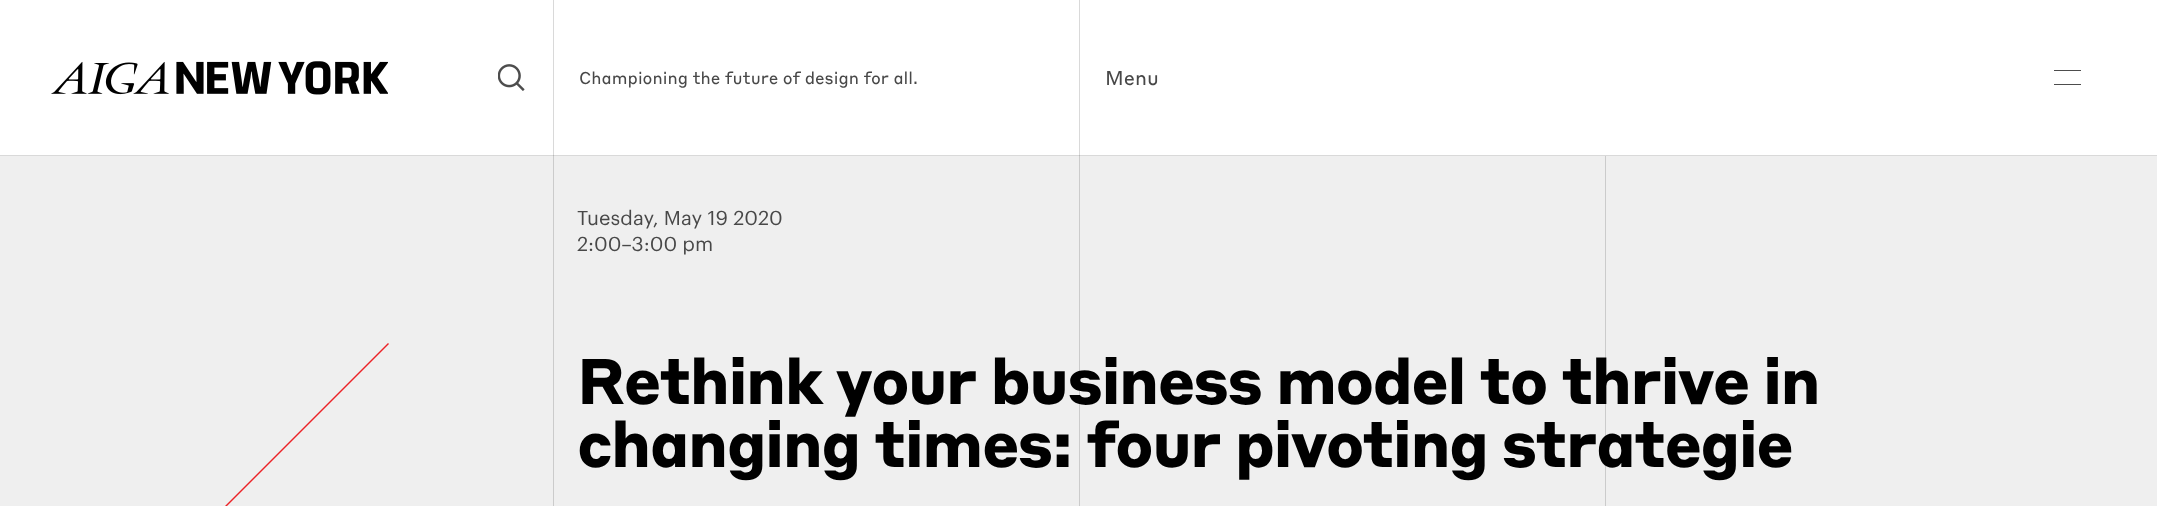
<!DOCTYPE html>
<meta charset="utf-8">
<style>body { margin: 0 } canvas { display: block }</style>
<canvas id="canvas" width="2157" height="506"></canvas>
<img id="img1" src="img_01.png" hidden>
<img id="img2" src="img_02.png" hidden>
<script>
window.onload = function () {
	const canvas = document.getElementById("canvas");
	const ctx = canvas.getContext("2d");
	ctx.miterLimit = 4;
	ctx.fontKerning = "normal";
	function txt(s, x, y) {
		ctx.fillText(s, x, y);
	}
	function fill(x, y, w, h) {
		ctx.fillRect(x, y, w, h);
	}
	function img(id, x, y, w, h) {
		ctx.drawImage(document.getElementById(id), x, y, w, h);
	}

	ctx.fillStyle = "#EFEFEF";
	fill(0, 0, 2157, 506);
	ctx.fillStyle = "#FFFFFF";
	fill(0, 0, 2157, 155);
	ctx.fillStyle = "#CBCBCB";
	fill(553, 155, 1, 351);
	fill(1079, 155, 1, 351);
	fill(1605, 155, 1, 351);
	ctx.fillStyle = "#D9D9D9";
	fill(0, 155, 2157, 1);
	img("img1", 51, 61, 337, 34);
	img("img2", 498, 64, 27, 27);
	fill(553, 0, 1, 156);
	ctx.fillStyle = "#B8B8B8";
	fill(553, 155, 1, 1);
	ctx.fillStyle = "#D9D9D9";
	fill(1079, 0, 1, 156);
	ctx.fillStyle = "#B8B8B8";
	fill(1079, 155, 1, 1);
	ctx.fillStyle = "#4D4D4D";
	fill(2054, 70, 27, 1);
	fill(2054, 84, 27, 1);
	ctx.fillStyle = "#EC2227";
	ctx.beginPath();
	ctx.moveTo(188, 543);
	ctx.lineTo(388, 343);
	ctx.lineTo(389, 344);
	ctx.lineTo(189, 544);
	ctx.closePath();
	ctx.fill();
	ctx.font = "16.9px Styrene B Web";
	ctx.fillStyle = "#484848";
	txt("Championing the future of design for all.", 579, 84);
	ctx.font = "19.75px Styrene B Web";
	txt("Menu", 1105, 85);
	ctx.font = "19.75px Graphik";
	txt("Tuesday, May 19 2020", 577, 225);
	txt("2:00–3:00 pm", 577, 251);
	ctx.letterSpacing = "-1.6px";
	ctx.font = "bold 63.25px Styrene B Web";
	ctx.fillStyle = "#000000";
	txt("Rethink your business model to thrive in", 577, 404);
	txt("changing times: four pivoting strategie", 577, 467);
};
</script>
